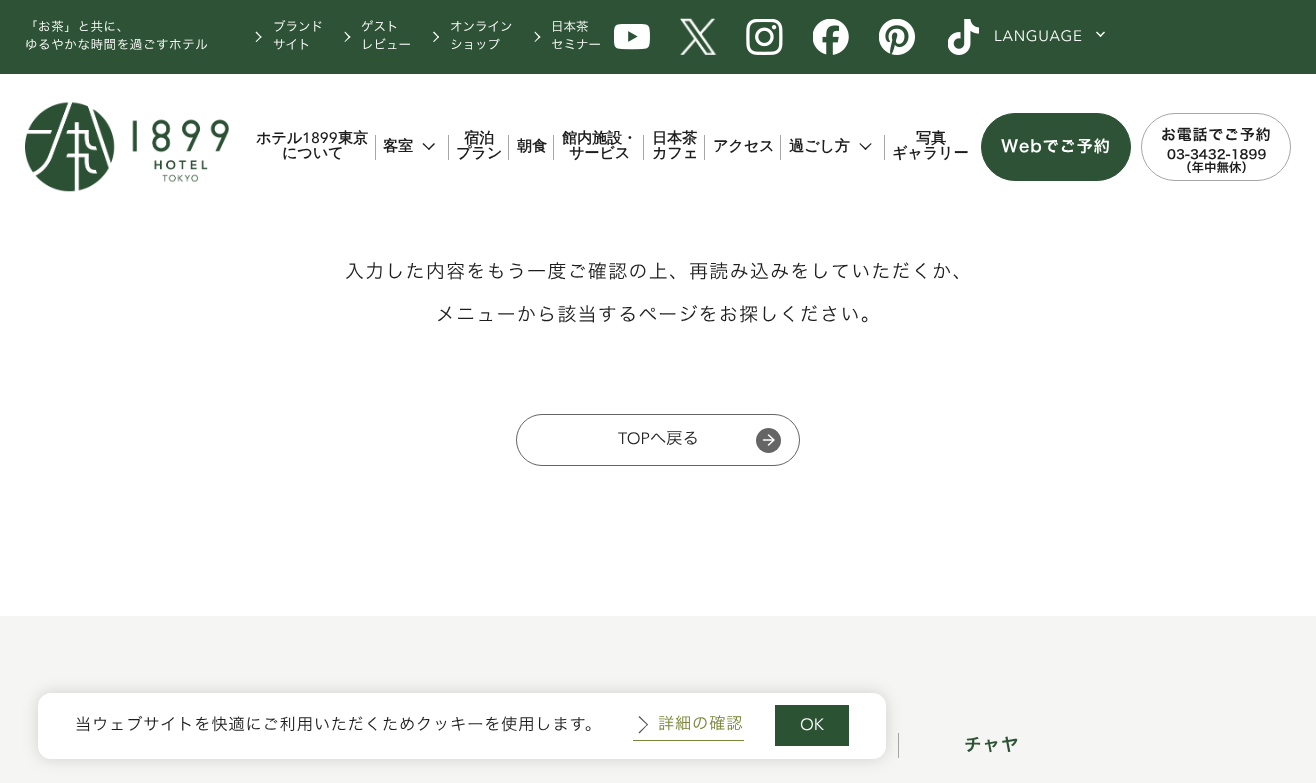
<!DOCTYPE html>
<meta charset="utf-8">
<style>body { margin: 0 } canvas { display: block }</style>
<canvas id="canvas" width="1316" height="783"></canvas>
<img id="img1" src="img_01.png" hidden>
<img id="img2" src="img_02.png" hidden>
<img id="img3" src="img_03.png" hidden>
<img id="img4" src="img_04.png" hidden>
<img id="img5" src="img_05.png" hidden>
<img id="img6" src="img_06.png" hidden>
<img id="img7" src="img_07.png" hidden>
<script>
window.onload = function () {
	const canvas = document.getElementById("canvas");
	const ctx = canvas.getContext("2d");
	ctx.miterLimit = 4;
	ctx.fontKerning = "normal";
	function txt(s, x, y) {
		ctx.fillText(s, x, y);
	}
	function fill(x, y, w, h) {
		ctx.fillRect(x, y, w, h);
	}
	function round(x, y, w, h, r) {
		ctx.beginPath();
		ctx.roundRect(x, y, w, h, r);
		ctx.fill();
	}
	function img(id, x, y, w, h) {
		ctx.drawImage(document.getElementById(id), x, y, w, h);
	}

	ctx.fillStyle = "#FFFFFF";
	fill(0, 0, 1316, 783);
	ctx.fillStyle = "#2D5235";
	fill(0, 0, 1316, 74);
	ctx.fillStyle = "#FFFFFF";
	ctx.beginPath();
	ctx.moveTo(256.5, 31.5);
	ctx.lineTo(261.5, 37);
	ctx.lineTo(261, 38);
	ctx.lineTo(255.5, 32.5);
	ctx.closePath();
	ctx.fill();
	ctx.beginPath();
	ctx.moveTo(261, 36);
	ctx.lineTo(261.5, 37);
	ctx.lineTo(256.5, 42);
	ctx.lineTo(255.5, 41.5);
	ctx.closePath();
	ctx.fill();
	ctx.beginPath();
	ctx.moveTo(345, 31.5);
	ctx.lineTo(350.5, 37);
	ctx.lineTo(349.5, 38);
	ctx.lineTo(344.5, 32.5);
	ctx.closePath();
	ctx.fill();
	ctx.beginPath();
	ctx.moveTo(349.5, 36);
	ctx.lineTo(350.5, 37);
	ctx.lineTo(345, 42);
	ctx.lineTo(344.5, 41.5);
	ctx.closePath();
	ctx.fill();
	ctx.beginPath();
	ctx.moveTo(434, 31.5);
	ctx.lineTo(439, 37);
	ctx.lineTo(438.5, 38);
	ctx.lineTo(433, 32.5);
	ctx.closePath();
	ctx.fill();
	ctx.beginPath();
	ctx.moveTo(438.5, 36);
	ctx.lineTo(439, 37);
	ctx.lineTo(434, 42);
	ctx.lineTo(433, 41.5);
	ctx.closePath();
	ctx.fill();
	ctx.beginPath();
	ctx.moveTo(535, 31.5);
	ctx.lineTo(540.5, 37);
	ctx.lineTo(539.5, 38);
	ctx.lineTo(534.5, 32.5);
	ctx.closePath();
	ctx.fill();
	ctx.beginPath();
	ctx.moveTo(539.5, 36);
	ctx.lineTo(540.5, 37);
	ctx.lineTo(535, 42);
	ctx.lineTo(534.5, 41.5);
	ctx.closePath();
	ctx.fill();
	img("img1", 614, 24, 36, 26);
	img("img2", 680, 18, 37, 37);
	img("img3", 746, 19, 37, 36);
	img("img4", 813, 19, 36, 36);
	img("img5", 879, 19, 36, 36);
	img("img6", 948, 19, 31, 36);
	ctx.beginPath();
	ctx.moveTo(1104, 31.5);
	ctx.lineTo(1105, 32.5);
	ctx.lineTo(1100.5, 37);
	ctx.lineTo(1099.5, 36);
	ctx.closePath();
	ctx.fill();
	ctx.beginPath();
	ctx.moveTo(1097, 31.5);
	ctx.lineTo(1101.5, 36);
	ctx.lineTo(1100.5, 37);
	ctx.lineTo(1096, 32.5);
	ctx.closePath();
	ctx.fill();
	img("img7", 25, 102, 204, 90);
	ctx.fillStyle = "#A6A6A6";
	fill(375, 135, 1, 25);
	ctx.fillStyle = "#1D1D1D";
	ctx.beginPath();
	ctx.moveTo(428, 149);
	ctx.lineTo(434, 143);
	ctx.lineTo(435, 144);
	ctx.lineTo(429, 150);
	ctx.closePath();
	ctx.fill();
	ctx.beginPath();
	ctx.moveTo(422.5, 144);
	ctx.lineTo(423.5, 143);
	ctx.lineTo(429.5, 149);
	ctx.lineTo(429, 150);
	ctx.closePath();
	ctx.fill();
	ctx.fillStyle = "#A6A6A6";
	fill(448, 135, 1, 25);
	fill(508, 135, 1, 25);
	fill(553, 135, 1, 25);
	fill(643, 135, 1, 25);
	fill(704, 135, 1, 25);
	fill(780, 135, 1, 25);
	ctx.fillStyle = "#1D1D1D";
	ctx.beginPath();
	ctx.moveTo(864.5, 149);
	ctx.lineTo(871, 143);
	ctx.lineTo(871.5, 144);
	ctx.lineTo(865.5, 150);
	ctx.closePath();
	ctx.fill();
	ctx.beginPath();
	ctx.moveTo(859.5, 144);
	ctx.lineTo(860, 143);
	ctx.lineTo(866.5, 149);
	ctx.lineTo(865.5, 150);
	ctx.closePath();
	ctx.fill();
	ctx.fillStyle = "#A6A6A6";
	fill(884, 135, 1, 25);
	ctx.fillStyle = "#2D5235";
	ctx.beginPath();
	ctx.roundRect(981.5, 113.5, 149, 67, 33.5);
	ctx.fill();
	ctx.strokeStyle = "#2D5235";
	ctx.stroke();
	ctx.beginPath();
	ctx.roundRect(1141.5, 113.5, 149, 67, 33.5);
	ctx.strokeStyle = "#A6A6A6";
	ctx.stroke();
	ctx.beginPath();
	ctx.roundRect(516.5, 414.5, 283, 51, 25.5);
	ctx.strokeStyle = "#656565";
	ctx.stroke();
	ctx.fillStyle = "#656565";
	ctx.beginPath();
	ctx.arc(768.5, 440.5, 12.5, 0, Math.PI * 2);
	ctx.fill();
	ctx.beginPath();
	ctx.moveTo(763.5, 440);
	ctx.lineTo(774, 440);
	ctx.moveTo(774, 440);
	ctx.lineTo(768.5, 445);
	ctx.moveTo(774, 440);
	ctx.lineTo(768.5, 435);
	ctx.strokeStyle = "#FFFFFF";
	ctx.lineWidth = 1.5;
	ctx.lineCap = "round";
	ctx.lineJoin = "round";
	ctx.stroke();
	ctx.fillStyle = "#F5F5F3";
	fill(0, 616, 1316, 167);
	ctx.fillStyle = "#A6A6A6";
	fill(898, 733, 1, 25);
	ctx.fillStyle = "rgba(0, 0, 0, 0.15)";
	ctx.filter = "blur(8px)";
	ctx.beginPath();
	ctx.roundRect(38, 693, 848, 66, 13);
	ctx.fill();
	ctx.filter = "none";
	ctx.fillStyle = "#FFFFFF";
	round(38, 693, 848, 66, 13);
	ctx.fillStyle = "#7A8539";
	fill(633, 740, 111, 1);
	ctx.fillStyle = "#595959";
	ctx.beginPath();
	ctx.moveTo(638.5, 717);
	ctx.lineTo(639.5, 716);
	ctx.lineTo(648, 724.5);
	ctx.lineTo(647.5, 725.5);
	ctx.closePath();
	ctx.fill();
	ctx.beginPath();
	ctx.moveTo(638.5, 732.5);
	ctx.lineTo(647.5, 724);
	ctx.lineTo(648, 724.5);
	ctx.lineTo(639.5, 733.5);
	ctx.closePath();
	ctx.fill();
	ctx.fillStyle = "#2C5234";
	fill(775, 705, 74, 41);
	ctx.letterSpacing = "0.6px";
	ctx.font = "300 12.5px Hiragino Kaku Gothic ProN";
	ctx.fillStyle = "#FFFFFF";
	txt("「お茶」と共に、", 25, 31);
	txt("ゆるやかな時間を過ごすホテル", 25, 49);
	ctx.letterSpacing = "0px";
	txt("ブランド", 273, 31);
	txt("サイト", 273, 49);
	txt("ゲスト", 361, 31);
	txt("レビュー", 361, 49);
	txt("オンライン", 450, 31);
	txt("ショップ", 450, 49);
	txt("日本茶", 551, 31);
	txt("セミナー", 551, 49);
	ctx.letterSpacing = "0.75px";
	ctx.font = "15px Avenir Next";
	txt("LANGUAGE", 994, 41);
	ctx.letterSpacing = "0px";
	ctx.font = "bold 15px WenQuanYi Zen Hei";
	ctx.fillStyle = "#1D1D1D";
	txt("ホテル", 256, 143);
	ctx.font = "500 15px Avenir Next";
	txt("1899", 302, 143);
	ctx.font = "bold 15px WenQuanYi Zen Hei";
	txt("東京", 338, 143);
	txt("について", 282, 158);
	txt("客室", 383, 151);
	txt("宿泊", 464, 143);
	txt("プラン", 456, 158);
	txt("朝食", 517, 151);
	txt("館内施設・", 562, 143);
	txt("サービス", 569, 158);
	txt("日本茶", 652, 143);
	txt("カフェ", 652, 158);
	txt("アクセス", 713, 151);
	txt("過ごし方", 789, 151);
	txt("写真", 916, 143);
	txt("ギャラリー", 892, 158);
	ctx.letterSpacing = "0.8px";
	ctx.font = "600 16.25px Hiragino Kaku Gothic ProN";
	ctx.fillStyle = "#FFFFFF";
	txt("Webでご予約", 1001, 152);
	ctx.letterSpacing = "0.75px";
	ctx.font = "600 15px Hiragino Kaku Gothic ProN";
	ctx.fillStyle = "#1D1D1D";
	txt("お電話でご予約", 1161, 140);
	ctx.letterSpacing = "0px";
	ctx.font = "600 12.5px Hiragino Kaku Gothic ProN";
	txt("03-3432-1899", 1167, 159);
	txt("（年中無休）", 1179, 172);
	ctx.letterSpacing = "1.5px";
	ctx.font = "300 18.75px Hiragino Kaku Gothic ProN";
	txt("入力した内容をもう一度ご確認の上、再読み込みをしていただくか、", 345, 278);
	txt("メニューから該当するページをお探しください。", 436, 321);
	ctx.letterSpacing = "0px";
	ctx.font = "16.25px Avenir Next";
	txt("TOP", 618, 444);
	ctx.font = "300 16.25px Hiragino Kaku Gothic ProN";
	txt("へ戻る", 650, 444);
	ctx.letterSpacing = "0.8px";
	txt("当ウェブサイトを快適にご利用いただくためクッキーを使用します。", 75, 730);
	ctx.fillStyle = "#7A8539";
	txt("詳細の確認", 658, 729);
	ctx.letterSpacing = "0px";
	ctx.font = "16.25px Avenir Next";
	ctx.fillStyle = "#FFFFFF";
	txt("OK", 800, 730);
	ctx.letterSpacing = "1px";
	ctx.font = "600 17.5px Hiragino Kaku Gothic ProN";
	ctx.fillStyle = "#2D5235";
	txt("チャヤ", 964, 751);
};
</script>
